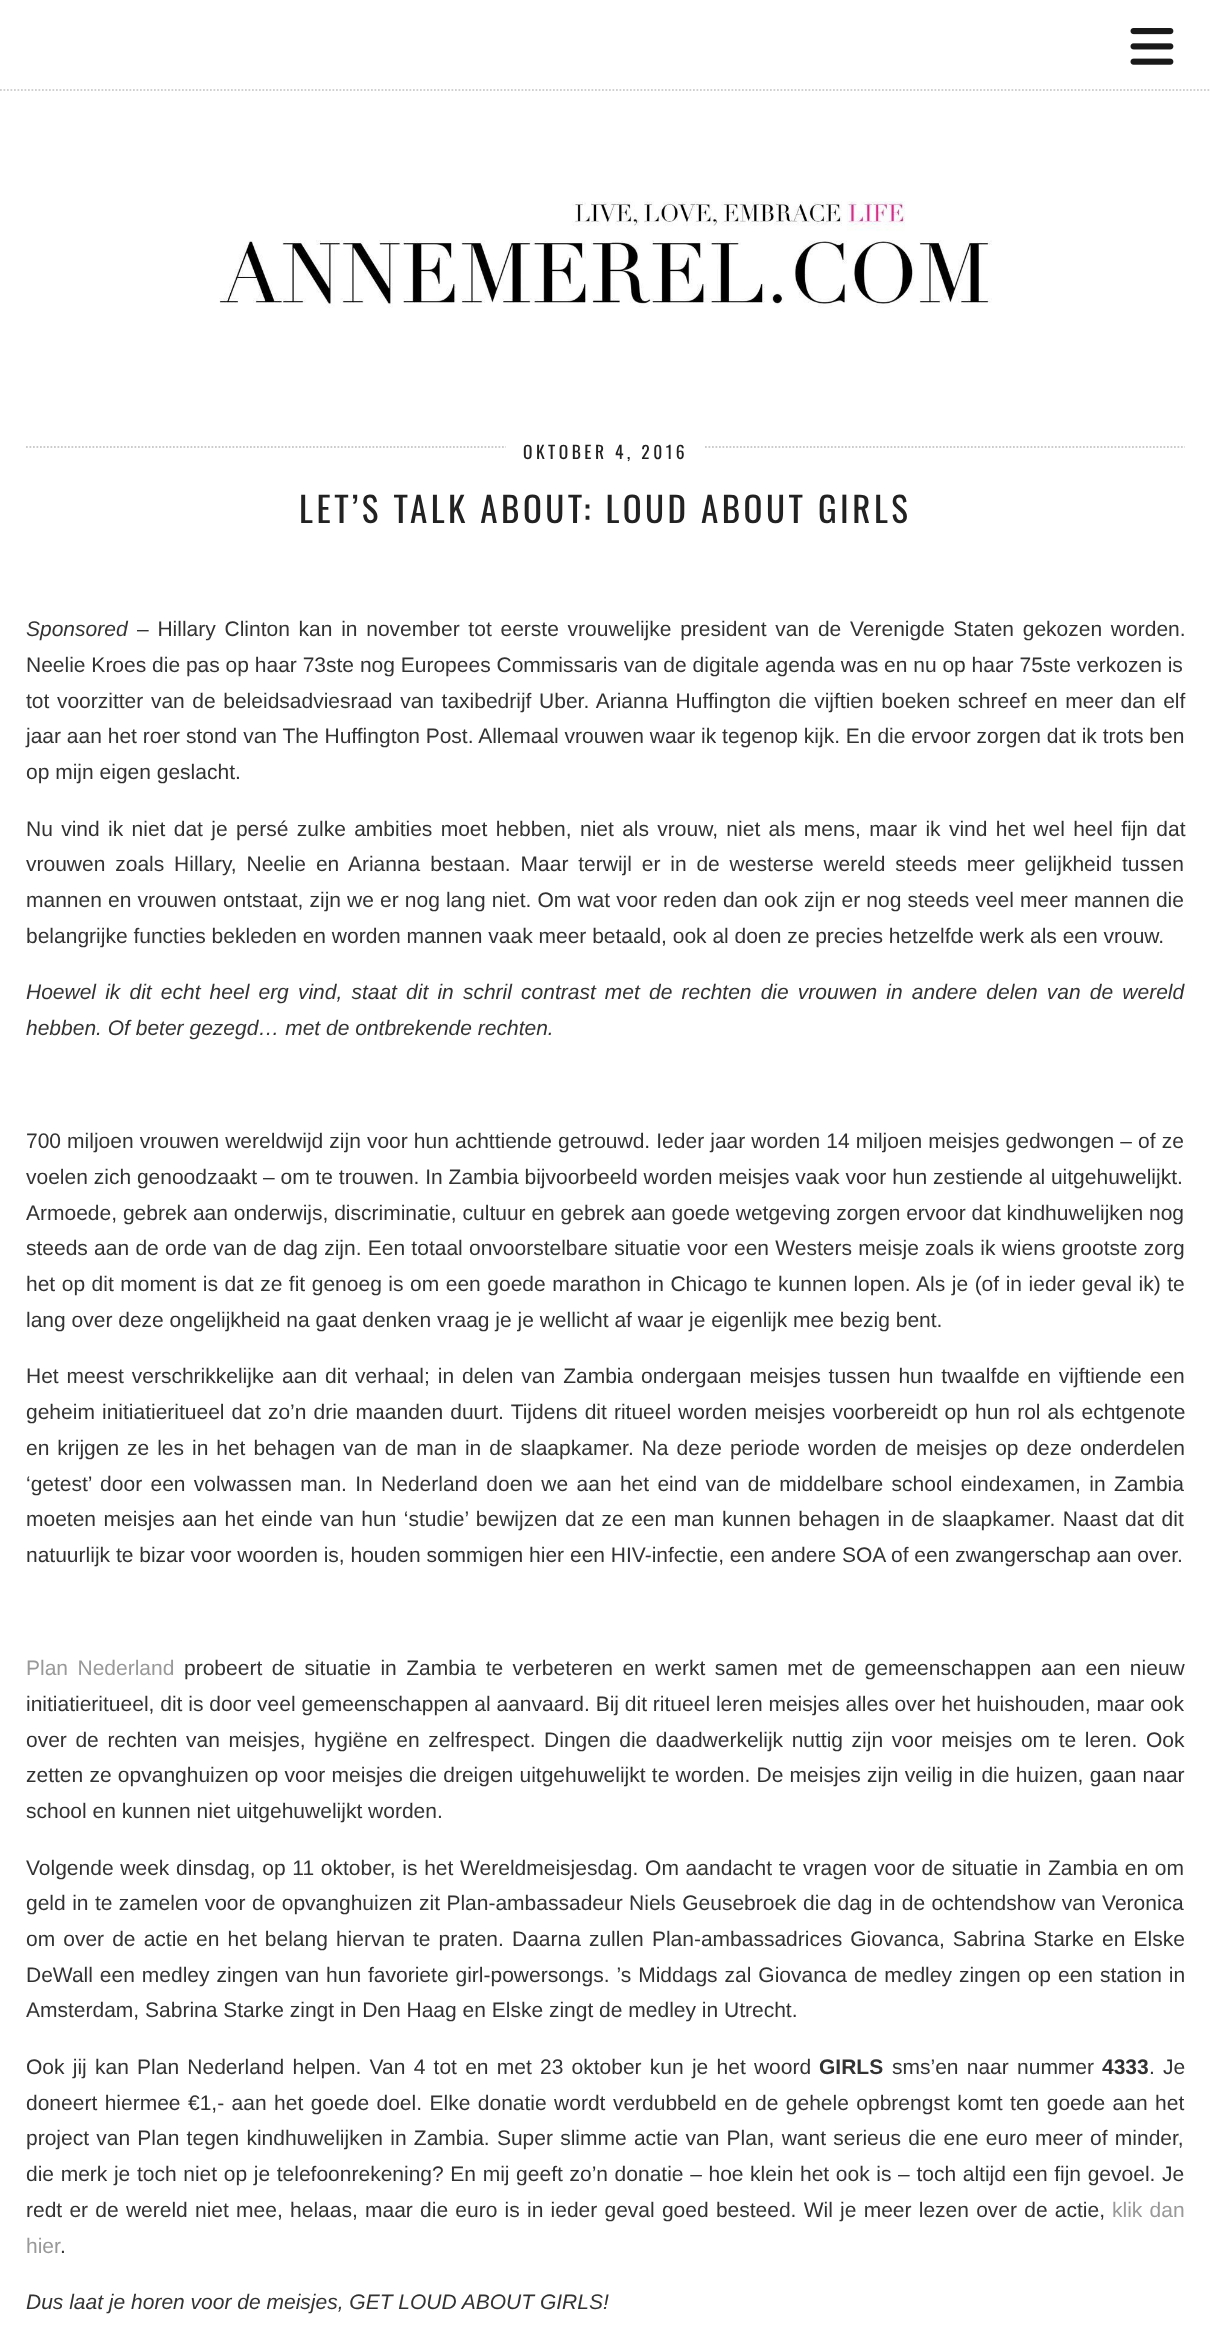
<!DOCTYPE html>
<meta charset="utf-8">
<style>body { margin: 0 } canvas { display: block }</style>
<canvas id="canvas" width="1211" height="2330"></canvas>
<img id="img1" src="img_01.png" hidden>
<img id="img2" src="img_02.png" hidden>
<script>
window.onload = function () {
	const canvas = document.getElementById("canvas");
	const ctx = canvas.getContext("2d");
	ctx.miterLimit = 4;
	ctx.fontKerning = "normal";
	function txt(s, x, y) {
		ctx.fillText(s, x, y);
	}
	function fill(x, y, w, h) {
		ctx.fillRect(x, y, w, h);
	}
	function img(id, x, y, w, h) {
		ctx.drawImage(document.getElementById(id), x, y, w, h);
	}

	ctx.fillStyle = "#FFFFFF";
	fill(0, 0, 1211, 2330);
	ctx.beginPath();
	ctx.moveTo(0, 90);
	ctx.lineTo(1211, 90);
	ctx.strokeStyle = "#D1D1D1";
	ctx.lineWidth = 1.8;
	ctx.setLineDash([1.75, 1.75]);
	ctx.stroke();
	img("img1", 1130, 28, 44, 37);
	img("img2", 219, 201, 773, 107);
	ctx.beginPath();
	ctx.moveTo(26, 447);
	ctx.lineTo(1185, 447);
	ctx.strokeStyle = "#CCCCCC";
	ctx.stroke();
	fill(506, 446, 198, 2);
	ctx.letterSpacing = "3.5px";
	ctx.font = "17.5px Oswald";
	ctx.fillStyle = "#222222";
	txt("OKTOBER 4, 2016", 523, 459);
	ctx.font = "35px Oswald";
	txt("LET’S TALK ABOUT: LOUD ABOUT GIRLS", 299, 523);
	ctx.letterSpacing = "0px";
	ctx.font = "italic 21px Liberation Sans";
	ctx.fillStyle = "#333333";
	txt("Sponsored", 26, 636);
	ctx.wordSpacing = "2.9px";
	ctx.font = "21px Liberation Sans";
	txt("– Hillary Clinton kan in november tot eerste vrouwelijke president van de Verenigde Staten gekozen worden.", 137, 636);
	ctx.wordSpacing = "0px";
	txt("Neelie Kroes die pas op haar 73ste nog Europees Commissaris van de digitale agenda was en nu op haar 75ste verkozen is", 26, 672);
	ctx.wordSpacing = "1.75px";
	txt("tot voorzitter van de beleidsadviesraad van taxibedrijf Uber. Arianna Huffington die vijftien boeken schreef en meer dan elf", 26, 708);
	ctx.wordSpacing = "0px";
	txt("jaar aan het roer stond van The Huffington Post. Allemaal vrouwen waar ik tegenop kijk. En die ervoor zorgen dat ik trots ben", 26, 743);
	txt("op mijn eigen geslacht.", 26, 779);
	ctx.wordSpacing = "2.5px";
	txt("Nu vind ik niet dat je persé zulke ambities moet hebben, niet als vrouw, niet als mens, maar ik vind het wel heel fijn dat", 26, 836);
	ctx.wordSpacing = "4px";
	txt("vrouwen zoals Hillary, Neelie en Arianna bestaan. Maar terwijl er in de westerse wereld steeds meer gelijkheid tussen", 26, 871);
	ctx.wordSpacing = "0.25px";
	txt("mannen en vrouwen ontstaat, zijn we er nog lang niet. Om wat voor reden dan ook zijn er nog steeds veel meer mannen die", 26, 907);
	ctx.wordSpacing = "0px";
	txt("belangrijke functies bekleden en worden mannen vaak meer betaald, ook al doen ze precies hetzelfde werk als een vrouw.", 26, 943);
	ctx.wordSpacing = "3.3px";
	ctx.font = "italic 21px Liberation Sans";
	txt("Hoewel ik dit echt heel erg vind, staat dit in schril contrast met de rechten die vrouwen in andere delen van de wereld", 26, 999);
	ctx.wordSpacing = "0px";
	txt("hebben. Of beter gezegd… met de ontbrekende rechten.", 26, 1035);
	ctx.wordSpacing = "0.25px";
	ctx.font = "21px Liberation Sans";
	txt("700 miljoen vrouwen wereldwijd zijn voor hun achttiende getrouwd. Ieder jaar worden 14 miljoen meisjes gedwongen – of ze", 26, 1148);
	ctx.wordSpacing = "0px";
	txt("voelen zich genoodzaakt – om te trouwen. In Zambia bijvoorbeeld worden meisjes vaak voor hun zestiende al uitgehuwelijkt.", 26, 1184);
	txt("Armoede, gebrek aan onderwijs, discriminatie, cultuur en gebrek aan goede wetgeving zorgen ervoor dat kindhuwelijken nog", 26, 1220);
	ctx.wordSpacing = "0.4px";
	txt("steeds aan de orde van de dag zijn. Een totaal onvoorstelbare situatie voor een Westers meisje zoals ik wiens grootste zorg", 26, 1255);
	ctx.wordSpacing = "0.7px";
	txt("het op dit moment is dat ze fit genoeg is om een goede marathon in Chicago te kunnen lopen. Als je (of in ieder geval ik) te", 26, 1291);
	ctx.wordSpacing = "0px";
	txt("lang over deze ongelijkheid na gaat denken vraag je je wellicht af waar je eigenlijk mee bezig bent.", 26, 1327);
	ctx.wordSpacing = "2.1px";
	txt("Het meest verschrikkelijke aan dit verhaal; in delen van Zambia ondergaan meisjes tussen hun twaalfde en vijftiende een", 26, 1383);
	ctx.wordSpacing = "1.25px";
	txt("geheim initiatieritueel dat zo’n drie maanden duurt. Tijdens dit ritueel worden meisjes voorbereidt op hun rol als echtgenote", 26, 1419);
	ctx.wordSpacing = "2.1px";
	txt("en krijgen ze les in het behagen van de man in de slaapkamer. Na deze periode worden de meisjes op deze onderdelen", 26, 1455);
	ctx.wordSpacing = "2.5px";
	txt("‘getest’ door een volwassen man. In Nederland doen we aan het eind van de middelbare school eindexamen, in Zambia", 26, 1491);
	ctx.wordSpacing = "1.6px";
	txt("moeten meisjes aan het einde van hun ‘studie’ bewijzen dat ze een man kunnen behagen in de slaapkamer. Naast dat dit", 26, 1526);
	ctx.wordSpacing = "0px";
	txt("natuurlijk te bizar voor woorden is, houden sommigen hier een HIV-infectie, een andere SOA of een zwangerschap aan over.", 26, 1562);
	ctx.wordSpacing = "3.6px";
	ctx.fillStyle = "#999999";
	txt("Plan Nederland", 26, 1675);
	ctx.fillStyle = "#333333";
	txt("probeert de situatie in Zambia te verbeteren en werkt samen met de gemeenschappen aan een nieuw", 184, 1675);
	ctx.wordSpacing = "0px";
	txt("initiatieritueel, dit is door veel gemeenschappen al aanvaard. Bij dit ritueel leren meisjes alles over het huishouden, maar ook", 26, 1711);
	ctx.wordSpacing = "2.75px";
	txt("over de rechten van meisjes, hygiëne en zelfrespect. Dingen die daadwerkelijk nuttig zijn voor meisjes om te leren. Ook", 26, 1747);
	ctx.wordSpacing = "0.4px";
	txt("zetten ze opvanghuizen op voor meisjes die dreigen uitgehuwelijkt te worden. De meisjes zijn veilig in die huizen, gaan naar", 26, 1782);
	ctx.wordSpacing = "0px";
	txt("school en kunnen niet uitgehuwelijkt worden.", 26, 1818);
	ctx.wordSpacing = "0.9px";
	txt("Volgende week dinsdag, op 11 oktober, is het Wereldmeisjesdag. Om aandacht te vragen voor de situatie in Zambia en om", 26, 1875);
	ctx.wordSpacing = "0.6px";
	txt("geld in te zamelen voor de opvanghuizen zit Plan-ambassadeur Niels Geusebroek die dag in de ochtendshow van Veronica", 26, 1910);
	ctx.wordSpacing = "2.25px";
	txt("om over de actie en het belang hiervan te praten. Daarna zullen Plan-ambassadrices Giovanca, Sabrina Starke en Elske", 26, 1946);
	ctx.wordSpacing = "1.1px";
	txt("DeWall een medley zingen van hun favoriete girl-powersongs. ’s Middags zal Giovanca de medley zingen op een station in", 26, 1982);
	ctx.wordSpacing = "0px";
	txt("Amsterdam, Sabrina Starke zingt in Den Haag en Elske zingt de medley in Utrecht.", 26, 2017);
	ctx.wordSpacing = "2.4px";
	txt("Ook jij kan Plan Nederland helpen. Van 4 tot en met 23 oktober kun je het woord", 26, 2074);
	ctx.wordSpacing = "0px";
	ctx.font = "bold 21px Liberation Sans";
	txt("GIRLS", 819, 2074);
	ctx.wordSpacing = "2.4px";
	ctx.font = "21px Liberation Sans";
	txt("sms’en naar nummer", 892, 2074);
	ctx.wordSpacing = "0px";
	ctx.font = "bold 21px Liberation Sans";
	txt("4333", 1102, 2074);
	ctx.wordSpacing = "2.4px";
	ctx.font = "21px Liberation Sans";
	txt(". Je", 1149, 2074);
	ctx.wordSpacing = "1.6px";
	txt("doneert hiermee €1,- aan het goede doel. Elke donatie wordt verdubbeld en de gehele opbrengst komt ten goede aan het", 26, 2110);
	ctx.wordSpacing = "1.4px";
	txt("project van Plan tegen kindhuwelijken in Zambia. Super slimme actie van Plan, want serieus die ene euro meer of minder,", 26, 2145);
	ctx.wordSpacing = "0.8px";
	txt("die merk je toch niet op je telefoonrekening? En mij geeft zo’n donatie – hoe klein het ook is – toch altijd een fijn gevoel. Je", 26, 2181);
	ctx.wordSpacing = "1.4px";
	txt("redt er de wereld niet mee, helaas, maar die euro is in ieder geval goed besteed. Wil je meer lezen over de actie,", 26, 2217);
	ctx.fillStyle = "#999999";
	txt("klik dan", 1112, 2217);
	ctx.wordSpacing = "0px";
	txt("hier", 26, 2253);
	ctx.fillStyle = "#333333";
	txt(".", 60, 2253);
	ctx.font = "italic 21px Liberation Sans";
	txt("Dus laat je horen voor de meisjes, GET LOUD ABOUT GIRLS!", 26, 2309);
};
</script>
